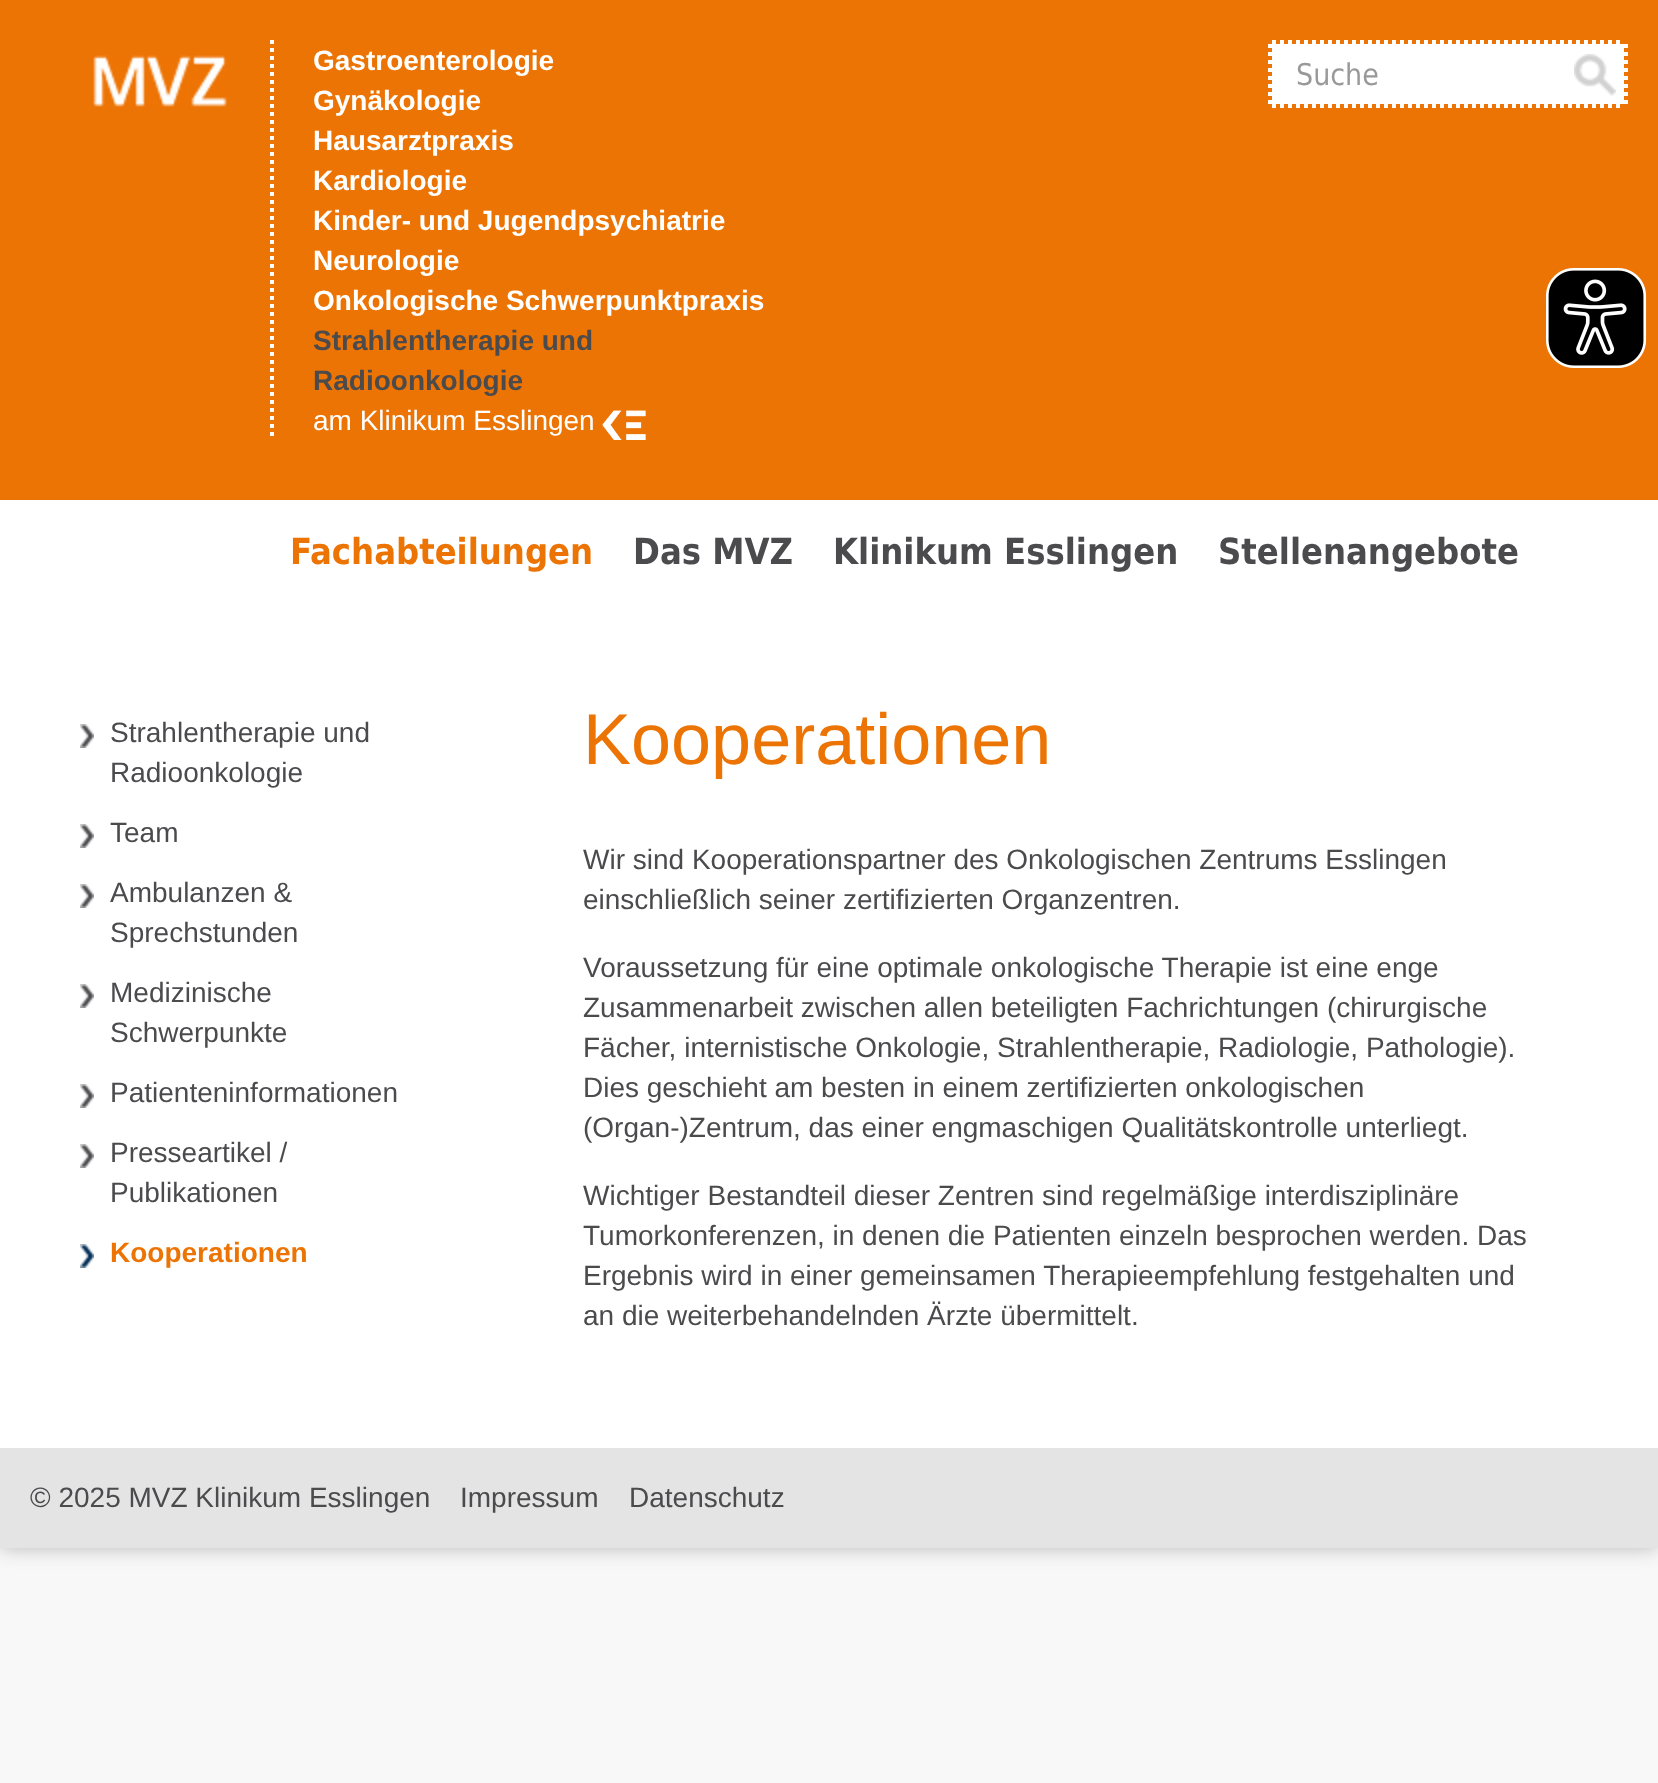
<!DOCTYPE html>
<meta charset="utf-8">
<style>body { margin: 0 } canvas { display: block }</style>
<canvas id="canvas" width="1658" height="1783"></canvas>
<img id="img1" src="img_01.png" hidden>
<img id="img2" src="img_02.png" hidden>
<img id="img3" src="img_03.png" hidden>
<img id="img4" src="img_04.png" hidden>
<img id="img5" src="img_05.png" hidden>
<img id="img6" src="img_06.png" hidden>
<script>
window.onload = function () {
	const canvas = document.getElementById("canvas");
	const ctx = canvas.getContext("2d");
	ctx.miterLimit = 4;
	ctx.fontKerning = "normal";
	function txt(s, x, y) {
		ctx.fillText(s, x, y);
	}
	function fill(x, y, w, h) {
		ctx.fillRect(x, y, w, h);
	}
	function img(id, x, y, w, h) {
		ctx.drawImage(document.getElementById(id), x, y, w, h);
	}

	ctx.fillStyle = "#F8F8F8";
	fill(0, 0, 1658, 1783);
	ctx.fillStyle = "rgba(0, 0, 0, 0.25)";
	ctx.filter = "blur(10px)";
	ctx.beginPath();
	ctx.rect(0, 0, 1658, 1548);
	ctx.fill();
	ctx.filter = "none";
	ctx.fillStyle = "#EC7404";
	fill(0, 0, 1658, 500);
	img("img1", 93, 55, 134, 52);
	ctx.beginPath();
	ctx.moveTo(272, 40);
	ctx.lineTo(272, 440);
	ctx.strokeStyle = "#FFFFFF";
	ctx.lineWidth = 4;
	ctx.setLineDash([4, 4]);
	ctx.stroke();
	img("img2", 602, 410, 44, 30);
	ctx.fillStyle = "#FFFFFF";
	fill(1268, 40, 360, 68);
	ctx.beginPath();
	ctx.moveTo(1268, 42);
	ctx.lineTo(1628, 42);
	ctx.strokeStyle = "#EC7404";
	ctx.stroke();
	ctx.beginPath();
	ctx.moveTo(1626, 40);
	ctx.lineTo(1626, 108);
	ctx.stroke();
	ctx.beginPath();
	ctx.moveTo(1268, 106);
	ctx.lineTo(1628, 106);
	ctx.stroke();
	ctx.beginPath();
	ctx.moveTo(1270, 40);
	ctx.lineTo(1270, 108);
	ctx.stroke();
	img("img3", 1574, 54, 42, 42);
	img("img4", 1546, 268, 101, 100);
	fill(0, 500, 1658, 948);
	img("img5", 80, 724, 14, 24);
	img("img5", 80, 824, 14, 24);
	img("img5", 80, 884, 14, 24);
	img("img5", 80, 984, 14, 24);
	img("img5", 80, 1084, 14, 24);
	img("img5", 80, 1144, 14, 24);
	img("img6", 80, 1244, 14, 24);
	ctx.fillStyle = "#E4E4E4";
	fill(0, 1448, 1658, 100);
	ctx.font = "bold 28px Liberation Sans";
	ctx.fillStyle = "#FFFFFF";
	txt("Gastroenterologie", 313, 70);
	txt("Gynäkologie", 313, 110);
	txt("Hausarztpraxis", 313, 150);
	txt("Kardiologie", 313, 190);
	txt("Kinder- und Jugendpsychiatrie", 313, 230);
	txt("Neurologie", 313, 270);
	txt("Onkologische Schwerpunktpraxis", 313, 310);
	ctx.fillStyle = "#4B4A4D";
	txt("Strahlentherapie und", 313, 350);
	txt("Radioonkologie", 313, 390);
	ctx.font = "28px Liberation Sans";
	ctx.fillStyle = "#FFFFFF";
	txt("am Klinikum Esslingen", 313, 430);
	ctx.font = "30px DejaVu Sans";
	ctx.fillStyle = "#999999";
	txt("Suche", 1296, 85);
	ctx.font = "bold 36px DejaVu Sans";
	ctx.fillStyle = "#EC7404";
	txt("Fachabteilungen", 290, 564);
	ctx.fillStyle = "#4B4A4D";
	txt("Das MVZ", 633, 564);
	txt("Klinikum Esslingen", 833, 564);
	txt("Stellenangebote", 1218, 564);
	ctx.font = "28px Liberation Sans";
	txt("Strahlentherapie und", 110, 742);
	txt("Radioonkologie", 110, 782);
	txt("Team", 110, 842);
	txt("Ambulanzen &", 110, 902);
	txt("Sprechstunden", 110, 942);
	txt("Medizinische", 110, 1002);
	txt("Schwerpunkte", 110, 1042);
	txt("Patienteninformationen", 110, 1102);
	txt("Presseartikel /", 110, 1162);
	txt("Publikationen", 110, 1202);
	ctx.font = "bold 28px Liberation Sans";
	ctx.fillStyle = "#EC7404";
	txt("Kooperationen", 110, 1262);
	ctx.font = "72px Liberation Sans";
	txt("Kooperationen", 583, 764);
	ctx.font = "28px Liberation Sans";
	ctx.fillStyle = "#4B4A4D";
	txt("Wir sind Kooperationspartner des Onkologischen Zentrums Esslingen", 583, 869);
	txt("einschließlich seiner zertifizierten Organzentren.", 583, 909);
	txt("Voraussetzung für eine optimale onkologische Therapie ist eine enge", 583, 977);
	txt("Zusammenarbeit zwischen allen beteiligten Fachrichtungen (chirurgische", 583, 1017);
	txt("Fächer, internistische Onkologie, Strahlentherapie, Radiologie, Pathologie).", 583, 1057);
	txt("Dies geschieht am besten in einem zertifizierten onkologischen", 583, 1097);
	txt("(Organ-)Zentrum, das einer engmaschigen Qualitätskontrolle unterliegt.", 583, 1137);
	txt("Wichtiger Bestandteil dieser Zentren sind regelmäßige interdisziplinäre", 583, 1205);
	txt("Tumorkonferenzen, in denen die Patienten einzeln besprochen werden. Das", 583, 1245);
	txt("Ergebnis wird in einer gemeinsamen Therapieempfehlung festgehalten und", 583, 1285);
	txt("an die weiterbehandelnden Ärzte übermittelt.", 583, 1325);
	txt("© 2025 MVZ Klinikum Esslingen", 30, 1507);
	txt("Impressum", 460, 1507);
	txt("Datenschutz", 629, 1507);
};
</script>
